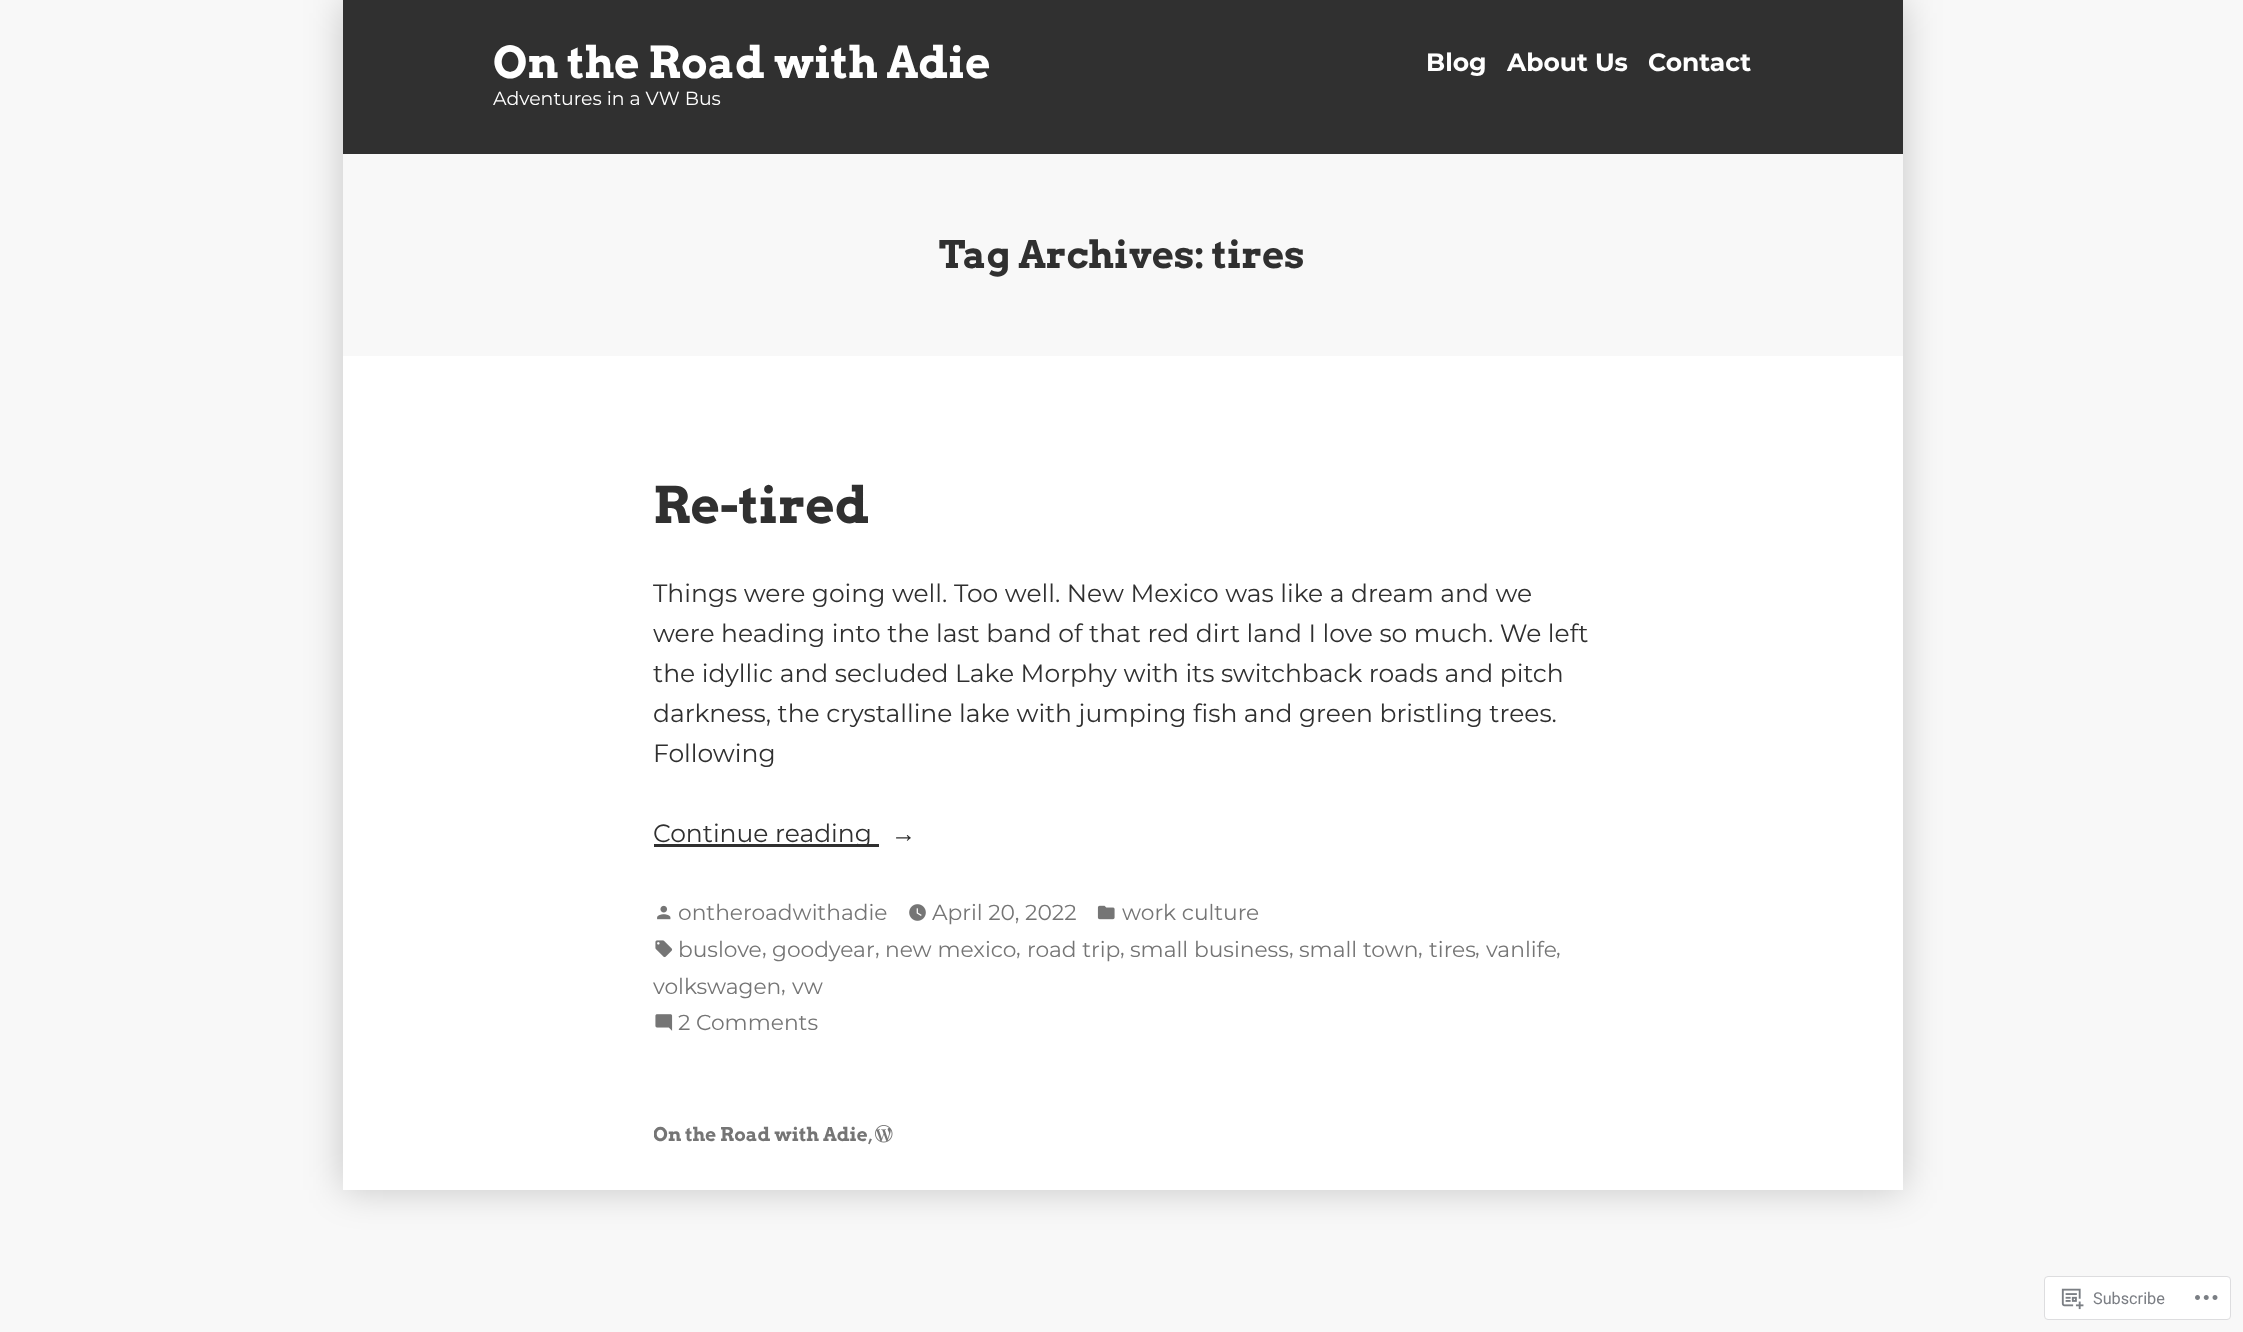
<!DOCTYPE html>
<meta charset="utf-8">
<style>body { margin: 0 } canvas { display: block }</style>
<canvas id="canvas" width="2243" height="1332"></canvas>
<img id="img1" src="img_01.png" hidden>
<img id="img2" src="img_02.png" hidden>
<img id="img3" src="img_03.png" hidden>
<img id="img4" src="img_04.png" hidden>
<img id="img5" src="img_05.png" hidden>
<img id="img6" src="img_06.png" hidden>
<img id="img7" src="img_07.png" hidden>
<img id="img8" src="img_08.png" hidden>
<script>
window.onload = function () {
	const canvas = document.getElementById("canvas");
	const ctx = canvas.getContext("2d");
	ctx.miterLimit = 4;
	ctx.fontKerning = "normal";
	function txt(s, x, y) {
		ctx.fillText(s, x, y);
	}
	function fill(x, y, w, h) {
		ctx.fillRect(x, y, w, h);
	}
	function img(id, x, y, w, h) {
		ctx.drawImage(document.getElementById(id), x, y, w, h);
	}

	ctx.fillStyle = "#F8F8F8";
	fill(0, 0, 2243, 1332);
	ctx.fillStyle = "rgba(0, 0, 0, 0.2)";
	ctx.filter = "blur(19px)";
	ctx.beginPath();
	ctx.rect(343, 0, 1560, 1190);
	ctx.fill();
	ctx.filter = "none";
	ctx.fillStyle = "#FFFFFF";
	fill(343, 356, 1560, 834);
	ctx.fillStyle = "#303030";
	fill(343, 0, 1560, 154);
	ctx.fillStyle = "#F8F8F8";
	fill(343, 154, 1560, 202);
	ctx.fillStyle = "#303030";
	fill(654, 844, 225, 3);
	img("img1", 657, 905, 14, 15);
	img("img2", 909, 904, 17, 17);
	img("img3", 1097, 905, 18, 15);
	img("img4", 655, 940, 18, 18);
	img("img5", 655, 1014, 18, 17);
	img("img6", 875, 1125, 18, 18);
	ctx.fillStyle = "#FFFFFF";
	ctx.beginPath();
	ctx.roundRect(2044.5, 1276.5, 186, 43, 3.5);
	ctx.fill();
	ctx.strokeStyle = "#DDDDDF";
	ctx.stroke();
	img("img7", 2061, 1288, 23, 22);
	img("img8", 2195, 1295, 23, 5);
	ctx.font = "bold 43.75px Arvo";
	txt("On the Road with Adie", 493, 78);
	ctx.font = "bold 25px Montserrat";
	txt("Blog", 1426, 71);
	txt("About Us", 1507, 71);
	txt("Contact", 1648, 71);
	ctx.font = "18.9px Montserrat";
	txt("Adventures in a VW Bus", 493, 105);
	ctx.font = "bold 38px Arvo";
	ctx.fillStyle = "#303030";
	txt("Tag Archives: tires", 939, 268);
	ctx.font = "bold 50.5px Arvo";
	txt("Re-tired", 653, 523);
	ctx.font = "25px Montserrat";
	txt("Things were going well. Too well. New Mexico was like a dream and we", 653, 602);
	txt("were heading into the last band of that red dirt land I love so much. We left", 653, 642);
	txt("the idyllic and secluded Lake Morphy with its switchback roads and pitch", 653, 682);
	txt("darkness, the crystalline lake with jumping fish and green bristling trees.", 653, 722);
	txt("Following", 653, 762);
	txt("Continue reading", 653, 842);
	ctx.font = "25px Liberation Serif";
	txt("→", 891, 842);
	ctx.font = "21.75px Montserrat";
	ctx.fillStyle = "#757575";
	txt("ontheroadwithadie", 678, 920);
	txt("April 20, 2022", 932, 920);
	txt("work culture", 1122, 920);
	txt("buslove", 678, 957);
	txt(",", 762, 955);
	txt("goodyear", 772, 957);
	txt(",", 875, 955);
	txt("new mexico", 885, 957);
	txt(",", 1016, 955);
	txt("road trip", 1027, 957);
	txt(",", 1120, 955);
	txt("small business", 1130, 957);
	txt(",", 1289, 955);
	txt("small town", 1299, 957);
	txt(",", 1418, 955);
	txt("tires", 1429, 957);
	txt(",", 1475, 955);
	txt("vanlife", 1486, 957);
	txt(",", 1556, 955);
	txt("volkswagen", 653, 994);
	txt(",", 781, 992);
	txt("vw", 792, 994);
	txt("2 Comments", 678, 1030);
	ctx.save();
	ctx.beginPath();
	ctx.rect(654, 1080, 937, 110);
	ctx.clip();
	ctx.font = "bold 18.9px Arvo";
	txt("On the Road with Adie", 653, 1141);
	ctx.restore();
	ctx.font = "18.9px Arvo";
	txt(",", 868, 1141);
	ctx.font = "16.25px Roboto";
	ctx.fillStyle = "#7B7E84";
	txt("Subscribe", 2093, 1304);
};
</script>
